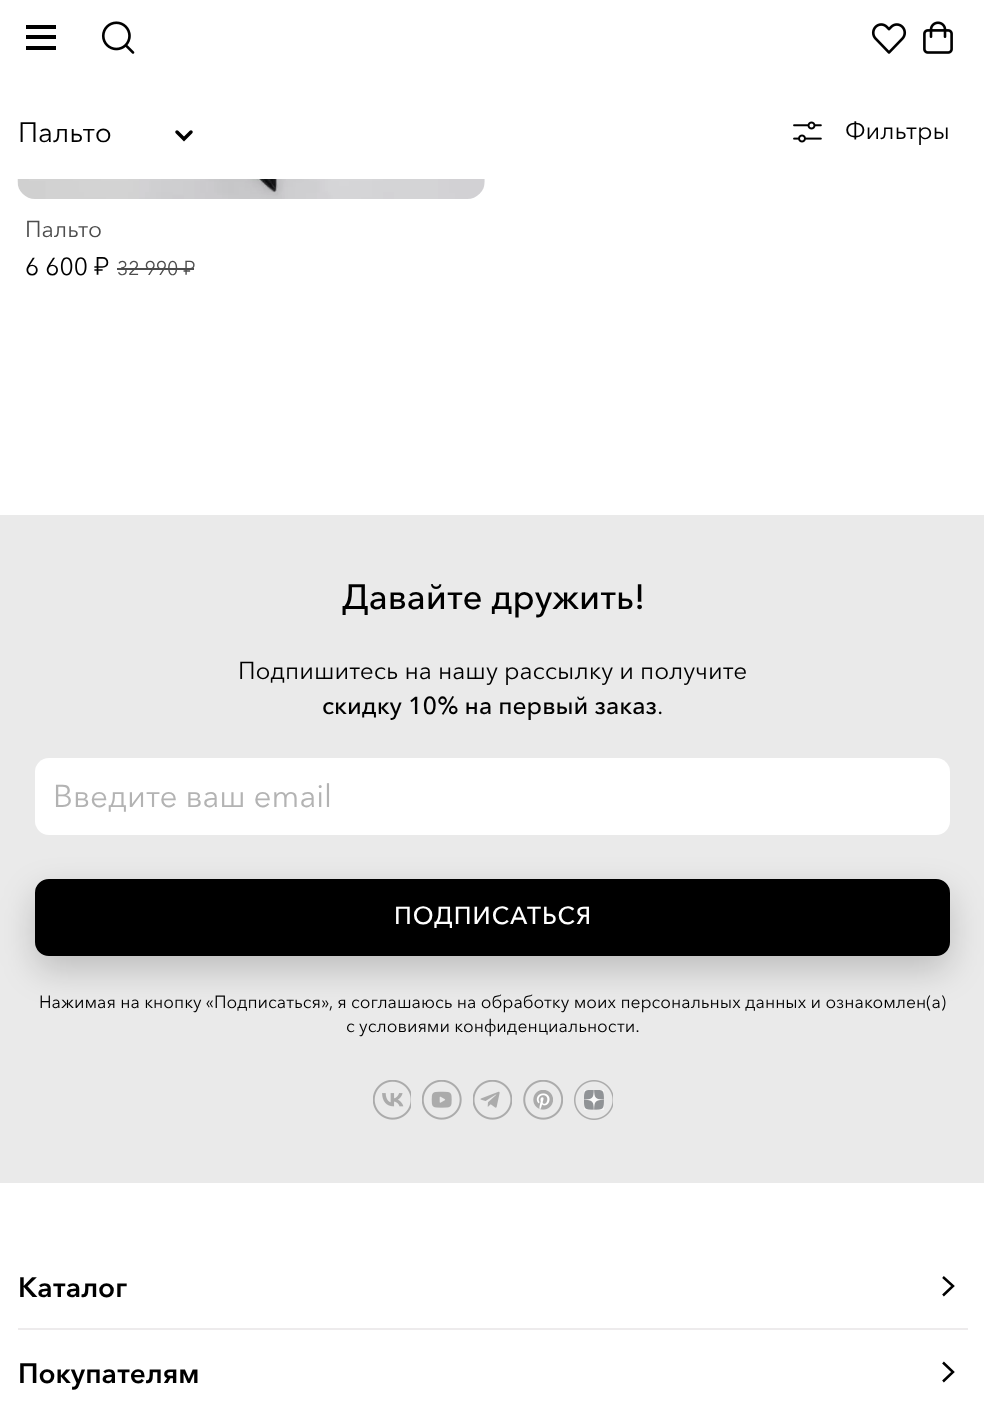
<!DOCTYPE html>
<meta charset="utf-8">
<style>body { margin: 0 } canvas { display: block }</style>
<canvas id="canvas" width="984" height="1402"></canvas>
<img id="img1" src="img_01.png" hidden>
<img id="img2" src="img_02.png" hidden>
<img id="img3" src="img_03.png" hidden>
<img id="img4" src="img_04.png" hidden>
<img id="img5" src="img_05.png" hidden>
<img id="img6" src="img_06.png" hidden>
<img id="img7" src="img_07.png" hidden>
<img id="img8" src="img_08.png" hidden>
<img id="img9" src="img_09.png" hidden>
<img id="img10" src="img_10.png" hidden>
<script>
window.onload = function () {
	const canvas = document.getElementById("canvas");
	const ctx = canvas.getContext("2d");
	ctx.miterLimit = 4;
	ctx.fontKerning = "normal";
	function txt(s, x, y) {
		ctx.fillText(s, x, y);
	}
	function fill(x, y, w, h) {
		ctx.fillRect(x, y, w, h);
	}
	function round(x, y, w, h, r) {
		ctx.beginPath();
		ctx.roundRect(x, y, w, h, r);
		ctx.fill();
	}
	function img(id, x, y, w, h) {
		ctx.drawImage(document.getElementById(id), x, y, w, h);
	}

	ctx.fillStyle = "#FFFFFF";
	fill(0, 0, 984, 1402);
	ctx.fillStyle = "#000000";
	fill(26, 25, 30, 4);
	fill(26, 35, 30, 4);
	fill(26, 46, 30, 4);
	img("img1", 101, 21, 34, 33);
	img("img2", 871, 23, 36, 31);
	img("img3", 923, 21, 30, 33);
	ctx.beginPath();
	ctx.moveTo(177, 132);
	ctx.lineTo(184, 139);
	ctx.lineTo(191, 132);
	ctx.strokeStyle = "#000000";
	ctx.lineWidth = 3.5;
	ctx.lineCap = "round";
	ctx.stroke();
	img("img4", 793, 121, 29, 22);
	img("img5", 17, 179, 468, 20);
	ctx.fillStyle = "#4D4D4D";
	fill(117, 268, 77, 2);
	ctx.fillStyle = "#EAEAEA";
	fill(0, 515, 984, 668);
	ctx.fillStyle = "#FFFFFF";
	round(35, 758, 915, 77, 14);
	ctx.fillStyle = "rgba(0, 0, 0, 0.19)";
	ctx.filter = "blur(17.5px)";
	ctx.beginPath();
	ctx.roundRect(35, 893, 915, 77, 14);
	ctx.fill();
	ctx.filter = "none";
	ctx.fillStyle = "#000000";
	ctx.beginPath();
	ctx.roundRect(36, 880, 913, 75, 13);
	ctx.fill();
	ctx.lineWidth = 2;
	ctx.stroke();
	img("img6", 373, 1080, 38, 40);
	img("img7", 422, 1080, 40, 40);
	img("img8", 473, 1080, 39, 40);
	img("img9", 523, 1080, 40, 40);
	img("img10", 574, 1080, 39, 40);
	ctx.fillStyle = "#EDEBEC";
	fill(18, 1328, 950, 2);
	ctx.beginPath();
	ctx.moveTo(943, 1277);
	ctx.lineTo(953, 1286);
	ctx.lineTo(943, 1295.5);
	ctx.lineWidth = 2.5;
	ctx.lineCap = "butt";
	ctx.stroke();
	ctx.beginPath();
	ctx.moveTo(943, 1362.5);
	ctx.lineTo(953, 1372);
	ctx.lineTo(943, 1381.5);
	ctx.stroke();
	ctx.font = "28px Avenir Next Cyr";
	ctx.fillStyle = "#000000";
	txt("Пальто", 18, 142);
	ctx.font = "24.5px Avenir Next Cyr";
	txt("Фильтры", 845, 139);
	ctx.font = "23px Avenir Next Cyr";
	ctx.fillStyle = "#4D4D4D";
	txt("Пальто", 25, 237);
	ctx.font = "24.5px Avenir Next Cyr";
	ctx.fillStyle = "#000000";
	txt("6 600 ₽", 25, 275);
	ctx.font = "19.5px Avenir Next Cyr";
	ctx.fillStyle = "#4D4D4D";
	txt("32 990 ₽", 117, 275);
	ctx.font = "500 35px Avenir Next Cyr";
	ctx.fillStyle = "#000000";
	txt("Давайте дружить!", 342, 609);
	ctx.font = "24.5px Avenir Next Cyr";
	txt("Подпишитесь на нашу рассылку и получите", 238, 679);
	ctx.font = "500 24.5px Avenir Next Cyr";
	txt("скидку 10% на первый заказ", 322, 714);
	ctx.font = "24.5px Avenir Next Cyr";
	txt(".", 657, 714);
	ctx.font = "31.5px Avenir Next Cyr";
	ctx.fillStyle = "#B3B3B3";
	txt("Введите ваш email", 53, 807);
	ctx.letterSpacing = "1px";
	ctx.font = "500 24.5px Avenir Next Cyr";
	ctx.fillStyle = "#FFFFFF";
	txt("ПОДПИСАТЬСЯ", 394, 924);
	ctx.letterSpacing = "0px";
	ctx.font = "17.5px Avenir Next Cyr";
	ctx.fillStyle = "#000000";
	txt("Нажимая на кнопку «Подписаться», я соглашаюсь на обработку моих персональных данных и ознакомлен(а)", 39, 1008);
	txt("с условиями конфиденциальности.", 346, 1032);
	ctx.font = "bold 28px Avenir Next Cyr";
	txt("Каталог", 18, 1297);
	txt("Покупателям", 18, 1383);
};
</script>
